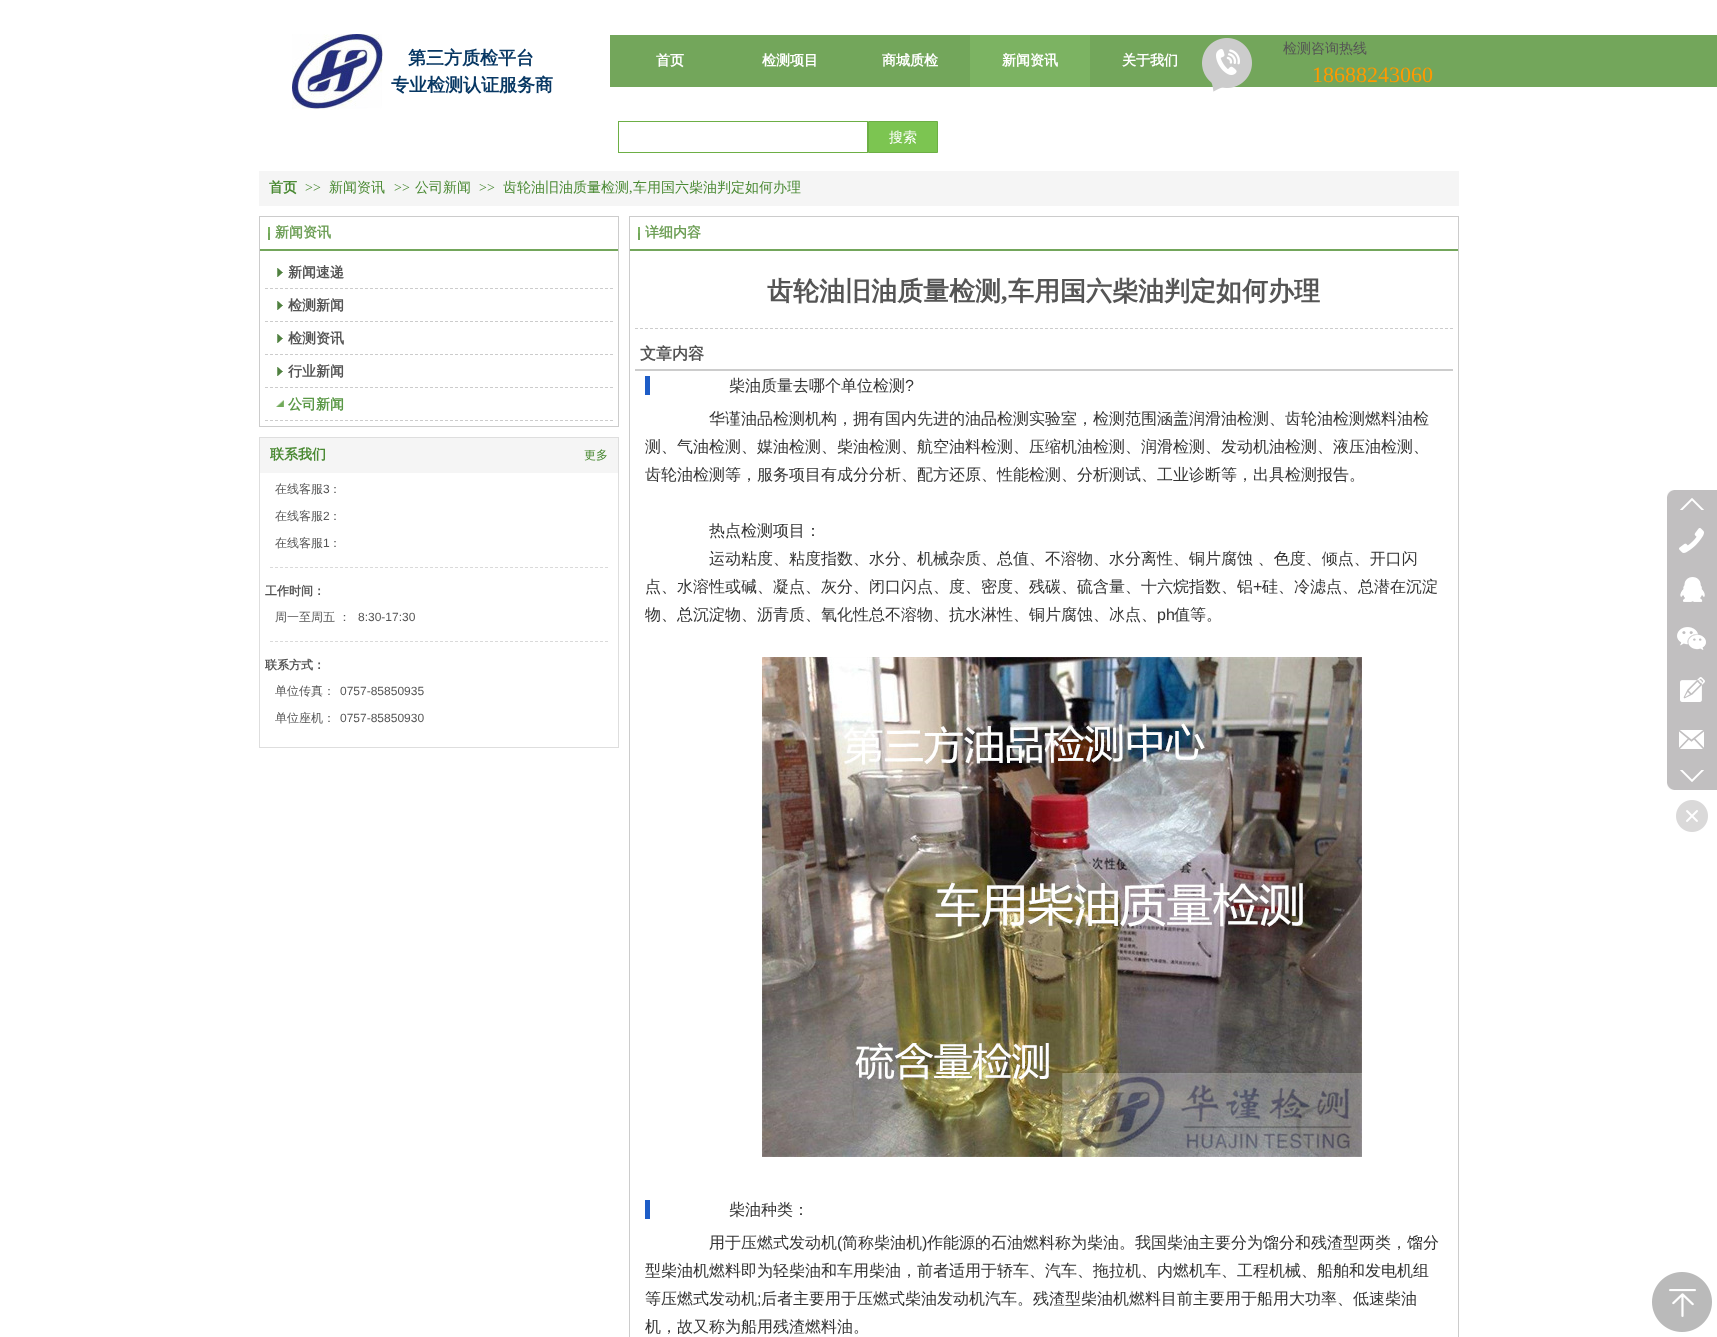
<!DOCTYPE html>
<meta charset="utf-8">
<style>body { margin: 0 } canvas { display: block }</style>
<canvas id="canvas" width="1717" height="1337"></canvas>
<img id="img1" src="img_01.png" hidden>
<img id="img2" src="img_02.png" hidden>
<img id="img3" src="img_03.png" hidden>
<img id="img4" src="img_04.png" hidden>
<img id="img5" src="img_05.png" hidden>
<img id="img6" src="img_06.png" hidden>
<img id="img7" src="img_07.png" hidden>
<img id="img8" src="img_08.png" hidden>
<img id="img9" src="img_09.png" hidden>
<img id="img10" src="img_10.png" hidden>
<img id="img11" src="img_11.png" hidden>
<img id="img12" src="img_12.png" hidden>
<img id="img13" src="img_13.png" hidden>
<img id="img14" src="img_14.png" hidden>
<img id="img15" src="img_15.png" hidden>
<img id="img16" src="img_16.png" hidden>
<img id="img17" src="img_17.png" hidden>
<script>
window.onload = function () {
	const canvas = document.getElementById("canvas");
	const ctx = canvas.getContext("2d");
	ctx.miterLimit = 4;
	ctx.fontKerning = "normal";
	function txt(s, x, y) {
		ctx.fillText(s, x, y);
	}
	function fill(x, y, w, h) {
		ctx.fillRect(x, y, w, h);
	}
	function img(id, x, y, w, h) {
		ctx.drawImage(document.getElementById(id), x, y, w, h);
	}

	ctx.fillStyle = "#FFFFFF";
	fill(0, 0, 1717, 1337);
	img("img1", 292, 34, 91, 76);
	ctx.fillStyle = "#73A65B";
	fill(610, 35, 1107, 52);
	img("img2", 1202, 38, 50, 54);
	ctx.fillStyle = "#7CB362";
	fill(970, 35, 120, 52);
	ctx.strokeStyle = "#6DAF45";
	ctx.strokeRect(618.5, 121.5, 249, 31);
	ctx.fillStyle = "#7CC551";
	ctx.beginPath();
	ctx.rect(868.5, 121.5, 69, 31);
	ctx.fill();
	ctx.stroke();
	ctx.fillStyle = "#F5F5F5";
	fill(259, 171, 1200, 35);
	ctx.strokeStyle = "#CCCCCC";
	ctx.strokeRect(259.5, 216.5, 359, 210);
	img("img3", 268, 227, 2, 13);
	ctx.fillStyle = "#73A65B";
	fill(260, 249, 358, 2);
	ctx.beginPath();
	ctx.moveTo(265, 288.5);
	ctx.lineTo(613, 288.5);
	ctx.setLineDash([3, 2]);
	ctx.stroke();
	img("img4", 277, 268, 6, 9);
	ctx.beginPath();
	ctx.moveTo(265, 321.5);
	ctx.lineTo(613, 321.5);
	ctx.stroke();
	img("img4", 277, 301, 6, 9);
	ctx.beginPath();
	ctx.moveTo(265, 354.5);
	ctx.lineTo(613, 354.5);
	ctx.stroke();
	img("img4", 277, 334, 6, 9);
	ctx.beginPath();
	ctx.moveTo(265, 387.5);
	ctx.lineTo(613, 387.5);
	ctx.stroke();
	img("img4", 277, 367, 6, 9);
	ctx.beginPath();
	ctx.moveTo(265, 420.5);
	ctx.lineTo(613, 420.5);
	ctx.stroke();
	img("img5", 276, 400, 8, 7);
	ctx.strokeStyle = "#DEDEDE";
	ctx.setLineDash([]);
	ctx.strokeRect(259.5, 437.5, 359, 310);
	ctx.fillStyle = "#F5F5F5";
	fill(260, 438, 358, 35);
	ctx.beginPath();
	ctx.moveTo(270, 567.5);
	ctx.lineTo(608, 567.5);
	ctx.strokeStyle = "#DADADA";
	ctx.setLineDash([3, 2]);
	ctx.stroke();
	ctx.beginPath();
	ctx.moveTo(270, 641.5);
	ctx.lineTo(608, 641.5);
	ctx.stroke();
	ctx.strokeStyle = "#CCCCCC";
	ctx.setLineDash([]);
	ctx.strokeRect(629.5, 216.5, 829, 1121);
	img("img3", 638, 227, 2, 13);
	ctx.fillStyle = "#73A65B";
	fill(630, 249, 828, 2);
	ctx.beginPath();
	ctx.moveTo(635, 328.5);
	ctx.lineTo(1453, 328.5);
	ctx.setLineDash([3, 2]);
	ctx.stroke();
	ctx.fillStyle = "#CCCCCC";
	fill(635, 369, 818, 2);
	ctx.fillStyle = "#1E5DC7";
	fill(645, 376, 5, 19);
	img("img6", 762, 657, 600, 500);
	fill(645, 1200, 5, 19);
	img("img7", 1667, 490, 7, 7);
	ctx.fillStyle = "#C1BFC0";
	fill(1674, 490, 43, 7);
	fill(1667, 497, 50, 286);
	img("img8", 1680, 498, 24, 12);
	img("img9", 1679, 528, 25, 25);
	img("img10", 1680, 577, 25, 25);
	img("img11", 1677, 627, 29, 23);
	img("img12", 1680, 677, 25, 25);
	img("img13", 1679, 730, 25, 19);
	img("img14", 1680, 770, 24, 12);
	img("img15", 1667, 783, 7, 7);
	fill(1674, 783, 43, 7);
	img("img16", 1676, 800, 32, 32);
	img("img17", 1652, 1272, 60, 60);
	ctx.font = "bold 18px WenQuanYi Zen Hei";
	ctx.fillStyle = "#073763";
	txt("第三方质检平台", 408, 64);
	txt("专业检测认证服务商", 391, 91);
	ctx.font = "500 14px WenQuanYi Zen Hei";
	ctx.fillStyle = "#555555";
	txt("检测咨询热线", 1283, 53);
	ctx.font = "22px Liberation Serif";
	ctx.fillStyle = "#FF9900";
	txt("18688243060", 1312, 82);
	ctx.font = "bold 14px WenQuanYi Zen Hei";
	ctx.fillStyle = "#FFFFFF";
	txt("首页", 656, 65);
	txt("检测项目", 762, 65);
	txt("商城质检", 882, 65);
	txt("新闻资讯", 1002, 65);
	txt("关于我们", 1122, 65);
	ctx.font = "500 14px WenQuanYi Zen Hei";
	txt("搜索", 889, 142);
	ctx.font = "bold 14px WenQuanYi Zen Hei";
	ctx.fillStyle = "#498932";
	txt("首页", 269, 192);
	ctx.font = "14px Liberation Serif";
	txt(">>", 305, 192);
	ctx.font = "500 14px WenQuanYi Zen Hei";
	txt("新闻资讯", 329, 192);
	ctx.font = "14px Liberation Serif";
	txt(">>", 394, 192);
	ctx.font = "500 14px WenQuanYi Zen Hei";
	txt("公司新闻", 415, 192);
	ctx.font = "14px Liberation Serif";
	txt(">>", 479, 192);
	ctx.font = "500 14px WenQuanYi Zen Hei";
	txt("齿轮油旧油质量检测", 503, 192);
	txt("车用国六柴油判定如何办理", 633, 192);
	ctx.font = "14px Liberation Serif";
	txt(",", 629, 192);
	ctx.font = "bold 14px WenQuanYi Zen Hei";
	ctx.fillStyle = "#6FA058";
	txt("新闻资讯", 275, 237);
	ctx.fillStyle = "#555555";
	txt("新闻速递", 288, 277);
	txt("检测新闻", 288, 310);
	txt("检测资讯", 288, 343);
	txt("行业新闻", 288, 376);
	ctx.fillStyle = "#5A9846";
	txt("公司新闻", 288, 409);
	ctx.save();
	ctx.beginPath();
	ctx.rect(270, 446, 56, 18);
	ctx.clip();
	ctx.fillStyle = "#498932";
	txt("联系我们", 270, 459);
	ctx.restore();
	ctx.font = "500 12px WenQuanYi Zen Hei";
	ctx.fillStyle = "#498932";
	txt("更多", 584, 459);
	ctx.fillStyle = "#555555";
	txt("在线客服", 275, 493);
	ctx.font = "12px Liberation Sans";
	txt("3", 323, 493);
	ctx.font = "500 12px WenQuanYi Zen Hei";
	txt("：", 329, 493);
	txt("在线客服", 275, 520);
	ctx.font = "12px Liberation Sans";
	txt("2", 323, 520);
	ctx.font = "500 12px WenQuanYi Zen Hei";
	txt("：", 329, 520);
	txt("在线客服", 275, 547);
	ctx.font = "12px Liberation Sans";
	txt("1", 323, 547);
	ctx.font = "500 12px WenQuanYi Zen Hei";
	txt("：", 329, 547);
	ctx.font = "bold 12px WenQuanYi Zen Hei";
	txt("工作时间：", 265, 595);
	ctx.font = "500 12px WenQuanYi Zen Hei";
	txt("周一至周五 ：", 275, 621);
	ctx.font = "12px Liberation Sans";
	txt("8:30-17:30", 358, 621);
	ctx.save();
	ctx.beginPath();
	ctx.rect(265, 478, 348, 256);
	ctx.clip();
	ctx.font = "bold 12px WenQuanYi Zen Hei";
	txt("联系方式：", 265, 669);
	ctx.restore();
	ctx.font = "500 12px WenQuanYi Zen Hei";
	txt("单位传真：", 275, 695);
	ctx.font = "12px Liberation Sans";
	txt("0757-85850935", 340, 695);
	ctx.font = "500 12px WenQuanYi Zen Hei";
	txt("单位座机：", 275, 722);
	ctx.font = "12px Liberation Sans";
	txt("0757-85850930", 340, 722);
	ctx.font = "bold 14px WenQuanYi Zen Hei";
	ctx.fillStyle = "#6FA058";
	txt("详细内容", 645, 237);
	ctx.font = "bold 26px WenQuanYi Zen Hei";
	ctx.fillStyle = "#555555";
	txt("齿轮油旧油质量检测", 767, 300);
	ctx.font = "bold 26px Liberation Serif";
	txt(",", 1001, 300);
	ctx.font = "bold 26px WenQuanYi Zen Hei";
	txt("车用国六柴油判定如何办理", 1008, 300);
	ctx.font = "bold 16px WenQuanYi Zen Hei";
	txt("文章内容", 640, 359);
	ctx.font = "500 16px WenQuanYi Zen Hei";
	ctx.fillStyle = "#333333";
	txt("柴油质量去哪个单位检测", 729, 391);
	ctx.font = "16px Liberation Sans";
	txt("?", 905, 391);
	ctx.font = "500 16px WenQuanYi Zen Hei";
	txt("华谨油品检测机构，拥有国内先进的油品检测实验室，检测范围涵盖润滑油检测、齿轮油检测燃料油检", 709, 424);
	txt("测、气油检测、媒油检测、柴油检测、航空油料检测、压缩机油检测、润滑检测、发动机油检测、液压油检测、", 645, 452);
	txt("齿轮油检测等，服务项目有成分分析、配方还原、性能检测、分析测试、工业诊断等，出具检测报告。", 645, 480);
	txt("热点检测项目：", 709, 536);
	txt("运动粘度、粘度指数、水分、机械杂质、总值、不溶物、水分离性、铜片腐蚀 、色度、倾点、开口闪", 709, 564);
	txt("点、水溶性或碱、凝点、灰分、闭口闪点、度、密度、残碳、硫含量、十六烷指数、铝", 645, 592);
	ctx.font = "16px Liberation Sans";
	txt("+", 1253, 592);
	ctx.font = "500 16px WenQuanYi Zen Hei";
	txt("硅、冷滤点、总潜在沉淀", 1262, 592);
	txt("物、总沉淀物、沥青质、氧化性总不溶物、抗水淋性、铜片腐蚀、冰点、", 645, 620);
	ctx.font = "16px Liberation Sans";
	txt("ph", 1157, 620);
	ctx.font = "500 16px WenQuanYi Zen Hei";
	txt("值等。", 1174, 620);
	txt("柴油种类：", 729, 1215);
	txt("用于压燃式发动机", 709, 1248);
	ctx.font = "16px Liberation Sans";
	txt("(", 837, 1248);
	ctx.font = "500 16px WenQuanYi Zen Hei";
	txt("简称柴油机", 842, 1248);
	ctx.font = "16px Liberation Sans";
	txt(")", 922, 1248);
	ctx.font = "500 16px WenQuanYi Zen Hei";
	txt("作能源的石油燃料称为柴油。我国柴油主要分为馏分和残渣型两类，馏分", 927, 1248);
	txt("型柴油机燃料即为轻柴油和车用柴油，前者适用于轿车、汽车、拖拉机、内燃机车、工程机械、船舶和发电机组", 645, 1276);
	txt("等压燃式发动机", 645, 1304);
	ctx.font = "16px Liberation Sans";
	txt(";", 757, 1304);
	ctx.font = "500 16px WenQuanYi Zen Hei";
	txt("后者主要用于压燃式柴油发动机汽车。残渣型柴油机燃料目前主要用于船用大功率、低速柴油", 761, 1304);
	txt("机，故又称为船用残渣燃料油。", 645, 1332);
};
</script>
